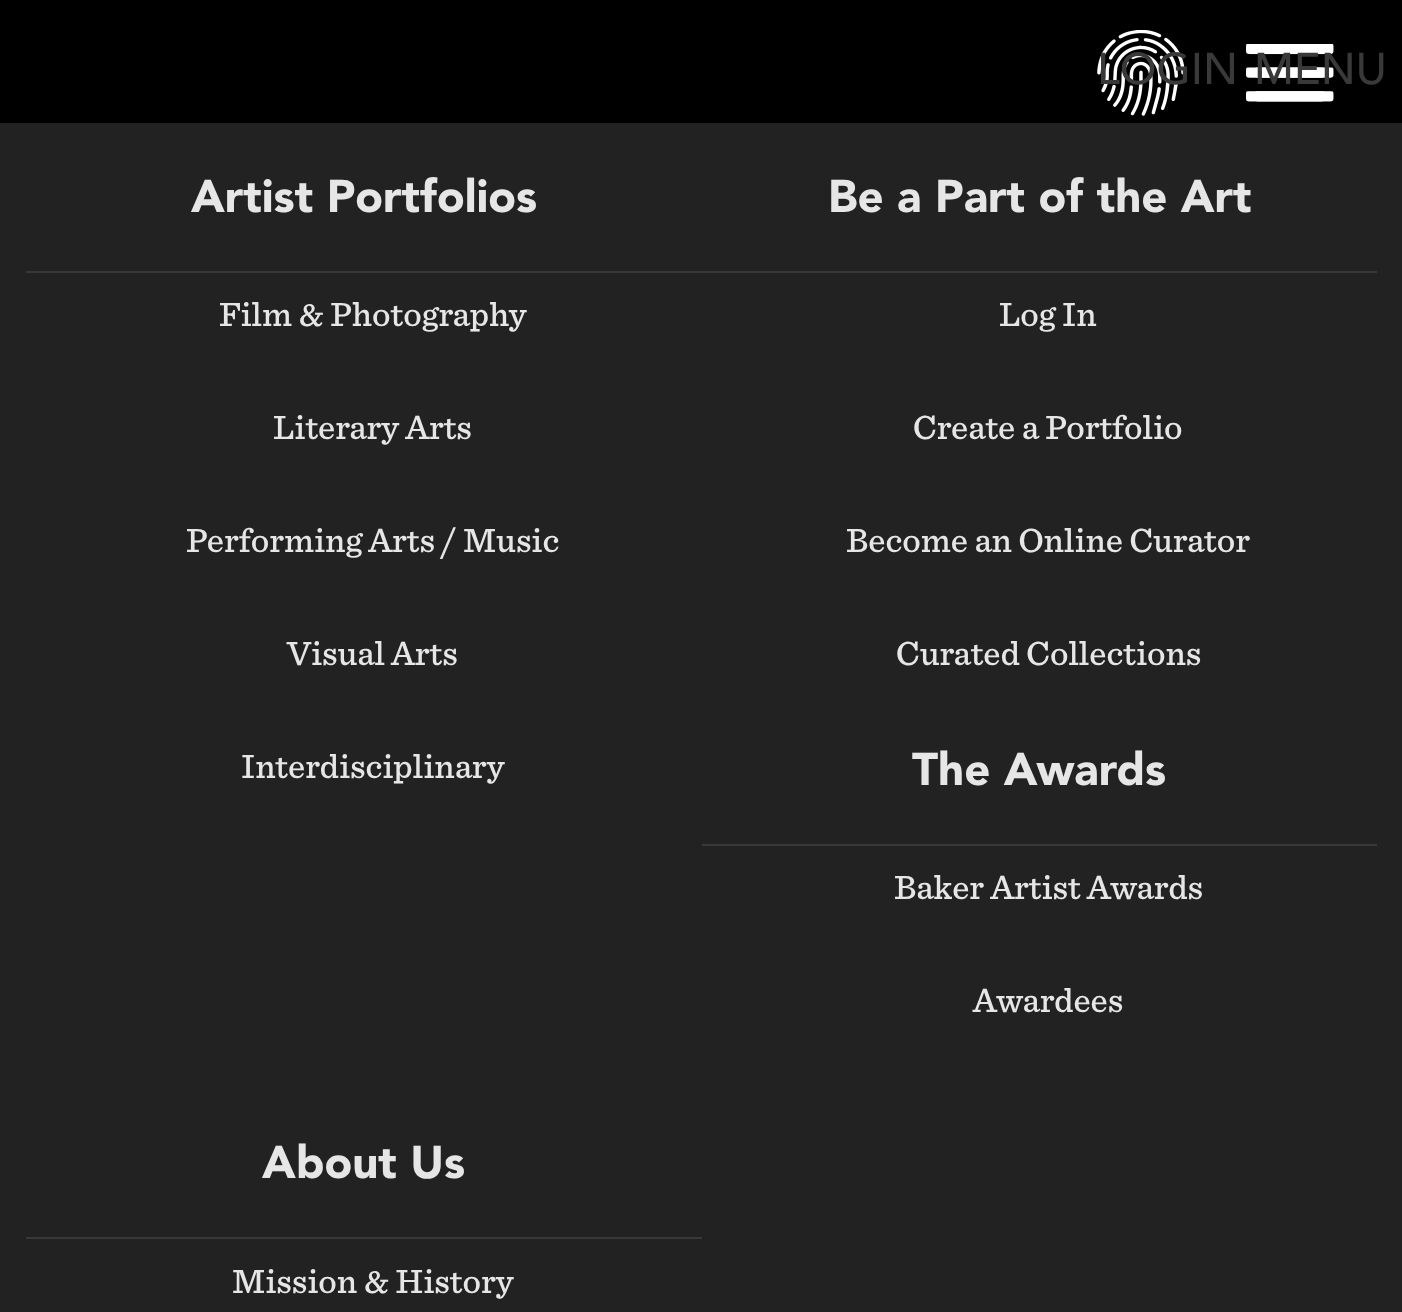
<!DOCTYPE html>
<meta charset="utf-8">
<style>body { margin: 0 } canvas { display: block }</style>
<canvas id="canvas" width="1402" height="1312"></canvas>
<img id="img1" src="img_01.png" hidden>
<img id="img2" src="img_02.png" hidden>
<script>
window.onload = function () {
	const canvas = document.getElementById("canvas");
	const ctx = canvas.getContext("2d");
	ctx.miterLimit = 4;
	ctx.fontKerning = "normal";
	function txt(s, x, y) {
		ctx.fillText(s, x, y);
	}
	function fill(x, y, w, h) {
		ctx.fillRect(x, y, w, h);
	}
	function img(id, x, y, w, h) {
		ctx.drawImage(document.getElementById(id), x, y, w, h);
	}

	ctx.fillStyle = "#222222";
	fill(0, 0, 1402, 1312);
	ctx.fillStyle = "#000000";
	fill(0, 0, 1402, 123);
	img("img1", 1097, 30, 88, 86);
	img("img2", 1246, 44, 88, 58);
	ctx.fillStyle = "#383838";
	fill(26, 271, 1351, 2);
	fill(702, 844, 675, 2);
	fill(26, 1237, 676, 2);
	ctx.font = "500 44px Avenir";
	ctx.fillStyle = "#393939";
	txt("LOGIN", 1097, 84);
	txt("MENU", 1254, 84);
	ctx.font = "900 45.5px Avenir";
	ctx.fillStyle = "#E6E6E6";
	txt("Artist Portfolios", 191, 212);
	ctx.font = "500 35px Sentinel";
	txt("Film & Photography", 219, 326);
	txt("Literary Arts", 273, 439);
	txt("Performing Arts / Music", 186, 552);
	txt("Visual Arts", 287, 665);
	txt("Interdisciplinary", 241, 778);
	ctx.font = "900 45.5px Avenir";
	txt("Be a Part of the Art", 828, 212);
	ctx.font = "500 35px Sentinel";
	txt("Log In", 999, 326);
	txt("Create a Portfolio", 913, 439);
	txt("Become an Online Curator", 846, 552);
	txt("Curated Collections", 896, 665);
	ctx.font = "900 45.5px Avenir";
	txt("The Awards", 912, 785);
	ctx.font = "500 35px Sentinel";
	txt("Baker Artist Awards", 894, 899);
	txt("Awardees", 973, 1012);
	ctx.font = "900 45.5px Avenir";
	txt("About Us", 262, 1178);
	ctx.font = "500 35px Sentinel";
	txt("Mission & History", 232, 1293);
};
</script>
